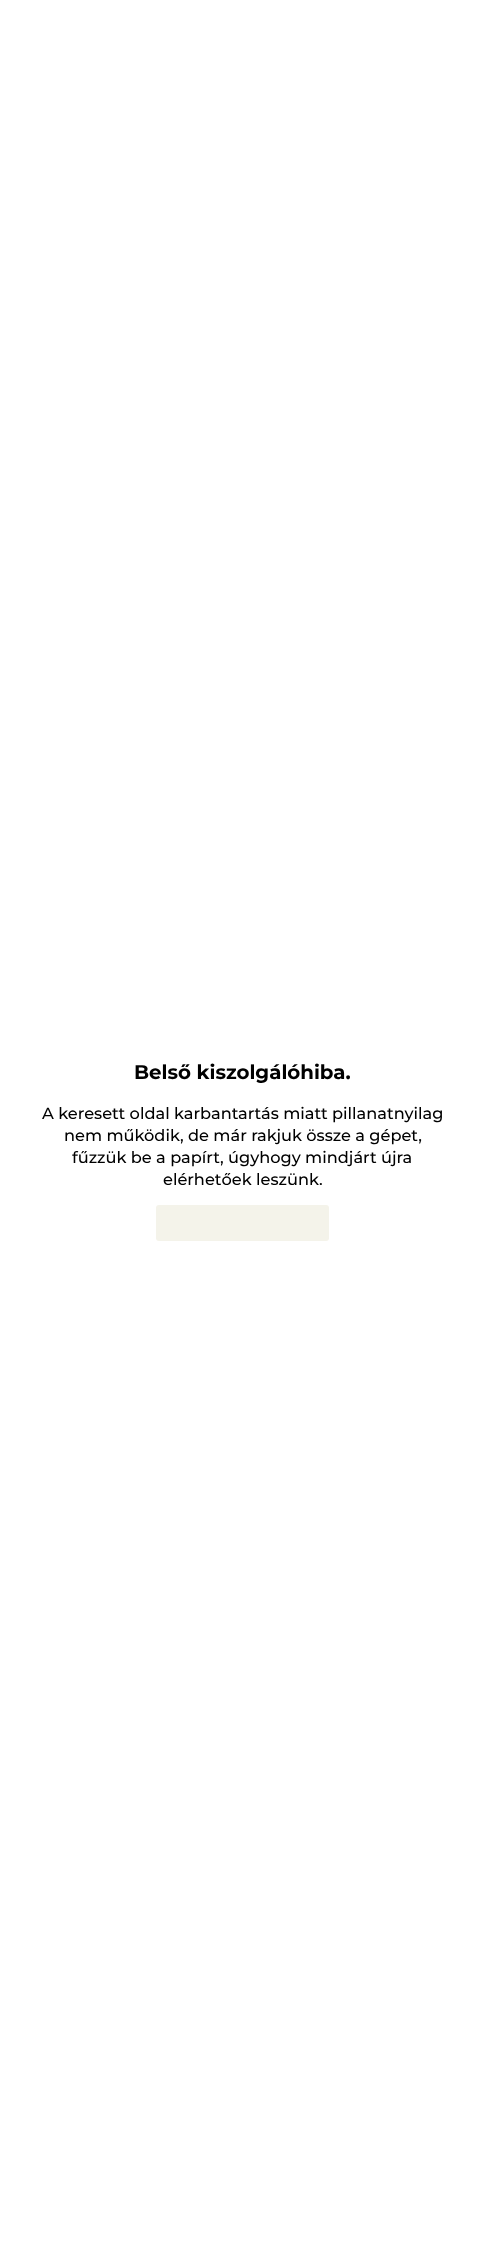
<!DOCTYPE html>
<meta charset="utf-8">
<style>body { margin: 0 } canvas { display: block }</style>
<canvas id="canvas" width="485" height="2257"></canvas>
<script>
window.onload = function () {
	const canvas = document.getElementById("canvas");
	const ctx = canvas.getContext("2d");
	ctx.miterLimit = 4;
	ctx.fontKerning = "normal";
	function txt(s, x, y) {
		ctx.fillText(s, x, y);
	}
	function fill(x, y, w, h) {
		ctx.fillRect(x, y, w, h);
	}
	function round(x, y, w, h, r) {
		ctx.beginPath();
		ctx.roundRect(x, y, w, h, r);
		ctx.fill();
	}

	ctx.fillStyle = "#FFFFFF";
	fill(0, 0, 485, 2257);
	ctx.fillStyle = "#F4F3EA";
	round(156, 1205, 173, 36, 3);
	ctx.font = "bold 19.75px Montserrat";
	ctx.fillStyle = "#000000";
	txt("Belső kiszolgálóhiba.", 134, 1079);
	ctx.font = "500 16.2px Montserrat";
	txt("A keresett oldal karbantartás miatt pillanatnyilag", 42, 1119);
	txt("nem működik, de már rakjuk össze a gépet,", 64, 1141);
	txt("fűzzük be a papírt, úgyhogy mindjárt újra", 72, 1163);
	txt("elérhetőek leszünk.", 163, 1185);
};
</script>
